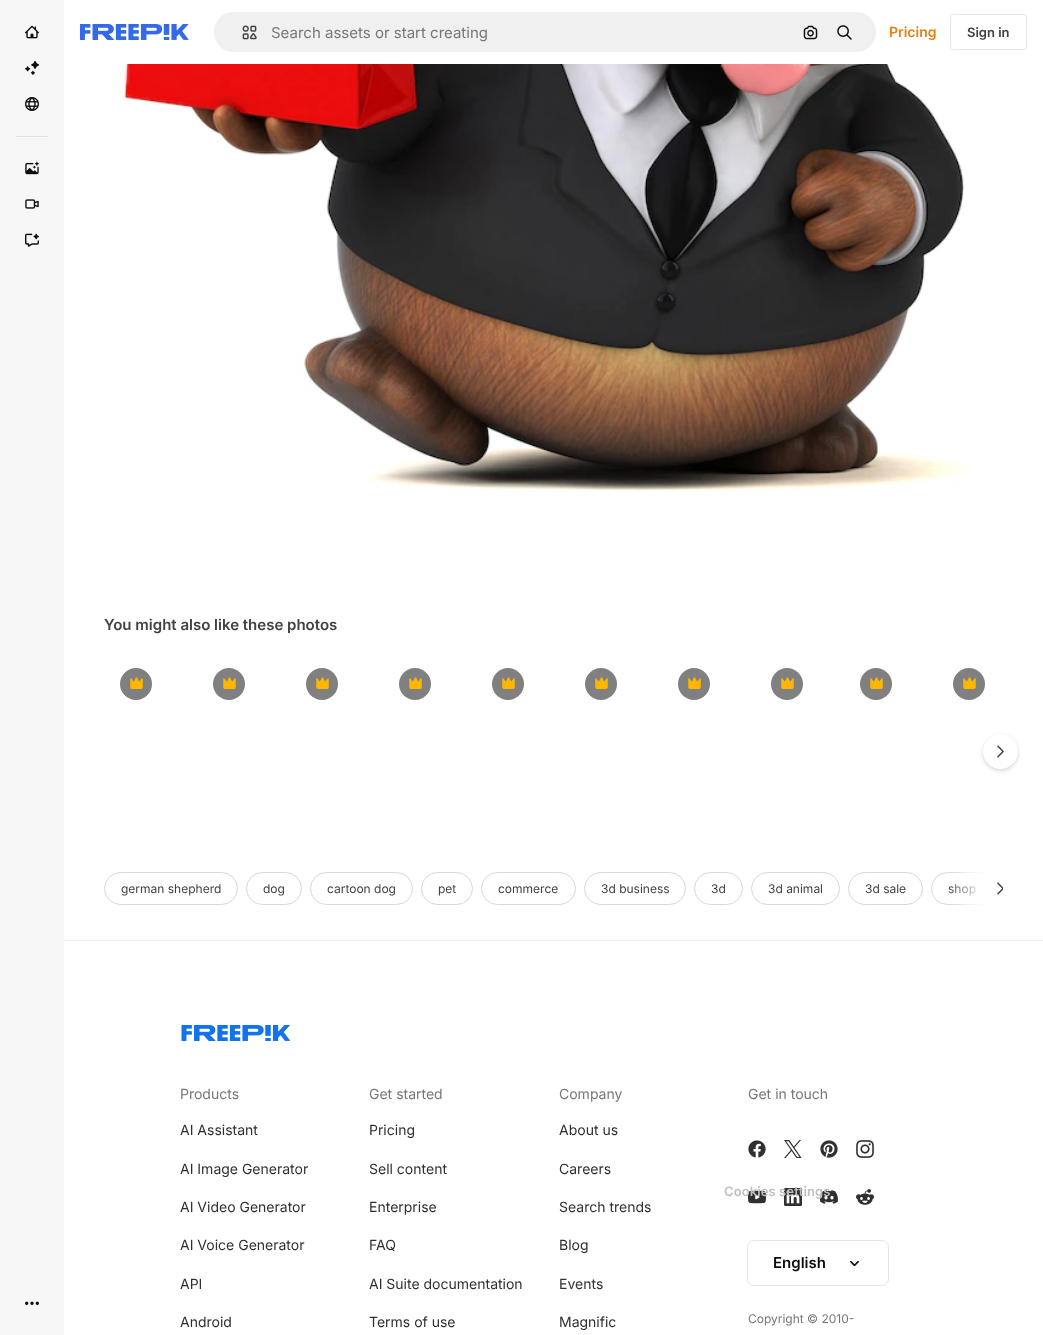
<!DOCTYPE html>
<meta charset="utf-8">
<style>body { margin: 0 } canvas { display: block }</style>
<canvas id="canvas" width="1043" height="1335"></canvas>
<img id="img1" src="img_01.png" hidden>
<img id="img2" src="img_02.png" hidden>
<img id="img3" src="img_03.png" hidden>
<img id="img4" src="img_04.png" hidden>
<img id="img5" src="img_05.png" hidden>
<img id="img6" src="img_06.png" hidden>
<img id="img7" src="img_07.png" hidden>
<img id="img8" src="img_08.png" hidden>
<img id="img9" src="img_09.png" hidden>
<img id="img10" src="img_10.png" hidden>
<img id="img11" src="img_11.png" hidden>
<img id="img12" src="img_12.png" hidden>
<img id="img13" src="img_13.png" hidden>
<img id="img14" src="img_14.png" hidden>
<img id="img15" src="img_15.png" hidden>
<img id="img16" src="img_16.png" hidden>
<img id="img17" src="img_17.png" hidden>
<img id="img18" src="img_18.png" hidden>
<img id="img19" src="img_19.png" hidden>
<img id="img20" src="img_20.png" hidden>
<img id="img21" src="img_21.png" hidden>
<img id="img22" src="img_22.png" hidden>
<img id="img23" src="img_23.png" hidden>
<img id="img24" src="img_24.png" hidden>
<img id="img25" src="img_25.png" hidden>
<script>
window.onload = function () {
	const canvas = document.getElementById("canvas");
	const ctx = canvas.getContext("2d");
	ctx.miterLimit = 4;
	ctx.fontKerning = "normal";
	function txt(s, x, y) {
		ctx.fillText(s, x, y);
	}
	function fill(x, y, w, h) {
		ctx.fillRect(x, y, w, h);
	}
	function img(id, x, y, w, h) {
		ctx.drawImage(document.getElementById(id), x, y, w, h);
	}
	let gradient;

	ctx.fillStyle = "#FFFFFF";
	fill(0, 0, 1043, 1335);
	ctx.fillStyle = "#F7F7F7";
	fill(0, 0, 64, 1335);
	img("img1", 25, 25, 14, 14);
	img("img2", 25, 61, 14, 14);
	img("img3", 25, 97, 14, 14);
	ctx.fillStyle = "#E0E0E0";
	fill(16, 136, 32, 1);
	img("img4", 25, 161, 14, 14);
	img("img5", 25, 199, 14, 10);
	img("img6", 25, 233, 14, 14);
	img("img7", 25, 1301, 14, 4);
	img("img8", 80, 24, 109, 16);
	ctx.fillStyle = "#F0F0F0";
	ctx.beginPath();
	ctx.roundRect(213.5, 11.5, 663, 41, 20.5);
	ctx.fill();
	ctx.strokeStyle = "#FFFFFF";
	ctx.stroke();
	img("img9", 242, 25, 15, 15);
	img("img10", 803, 25, 15, 15);
	img("img11", 837, 25, 15, 15);
	ctx.beginPath();
	ctx.roundRect(950.5, 14.5, 76, 35, 3.5);
	ctx.strokeStyle = "#E7E7E7";
	ctx.stroke();
	img("img12", 123, 64, 850, 428);
	ctx.fillStyle = "#808080";
	ctx.beginPath();
	ctx.arc(136, 684, 16, 0, Math.PI * 2);
	ctx.fill();
	img("img13", 130, 677, 13, 12);
	ctx.beginPath();
	ctx.arc(229, 684, 16, 0, Math.PI * 2);
	ctx.fill();
	img("img13", 223, 677, 13, 12);
	ctx.beginPath();
	ctx.arc(322, 684, 16, 0, Math.PI * 2);
	ctx.fill();
	img("img13", 316, 677, 13, 12);
	ctx.beginPath();
	ctx.arc(415, 684, 16, 0, Math.PI * 2);
	ctx.fill();
	img("img13", 409, 677, 13, 12);
	ctx.beginPath();
	ctx.arc(508, 684, 16, 0, Math.PI * 2);
	ctx.fill();
	img("img13", 502, 677, 13, 12);
	ctx.beginPath();
	ctx.arc(601, 684, 16, 0, Math.PI * 2);
	ctx.fill();
	img("img13", 595, 677, 13, 12);
	ctx.beginPath();
	ctx.arc(694, 684, 16, 0, Math.PI * 2);
	ctx.fill();
	img("img13", 688, 677, 13, 12);
	ctx.beginPath();
	ctx.arc(787, 684, 16, 0, Math.PI * 2);
	ctx.fill();
	img("img13", 781, 677, 13, 12);
	ctx.beginPath();
	ctx.arc(876, 684, 16, 0, Math.PI * 2);
	ctx.fill();
	img("img13", 870, 677, 13, 12);
	ctx.beginPath();
	ctx.arc(969, 684, 16, 0, Math.PI * 2);
	ctx.fill();
	img("img13", 963, 677, 13, 12);
	ctx.fillStyle = "rgba(55, 73, 87, 0.15)";
	ctx.filter = "blur(2.5px)";
	ctx.beginPath();
	ctx.roundRect(983, 736, 35, 35, 17.5);
	ctx.fill();
	ctx.filter = "none";
	ctx.fillStyle = "rgba(55, 73, 87, 0.1)";
	ctx.filter = "blur(1px)";
	ctx.beginPath();
	ctx.roundRect(983, 735, 35, 35, 17.5);
	ctx.fill();
	ctx.filter = "none";
	ctx.fillStyle = "#FFFFFF";
	ctx.beginPath();
	ctx.arc(1000.5, 751.5, 17.5, 0, Math.PI * 2);
	ctx.fill();
	img("img14", 997, 745, 7, 13);
	ctx.save();
	ctx.beginPath();
	ctx.rect(104, 872, 899, 33);
	ctx.clip();
	ctx.beginPath();
	ctx.roundRect(931.5, 872.5, 86, 32, 16);
	ctx.strokeStyle = "#D8D8D8";
	ctx.stroke();
	ctx.restore();
	fill(983, 872, 20, 33);
	img("img15", 997, 882, 6, 13);
	ctx.beginPath();
	ctx.roundRect(104.5, 872.5, 133, 32, 16);
	ctx.strokeStyle = "#D8D8D8";
	ctx.stroke();
	ctx.beginPath();
	ctx.roundRect(246.5, 872.5, 55, 32, 16);
	ctx.stroke();
	ctx.beginPath();
	ctx.roundRect(310.5, 872.5, 102, 32, 16);
	ctx.stroke();
	ctx.beginPath();
	ctx.roundRect(421.5, 872.5, 51, 32, 16);
	ctx.stroke();
	ctx.beginPath();
	ctx.roundRect(481.5, 872.5, 94, 32, 16);
	ctx.stroke();
	ctx.beginPath();
	ctx.roundRect(584.5, 872.5, 101, 32, 16);
	ctx.stroke();
	ctx.beginPath();
	ctx.roundRect(694.5, 872.5, 48, 32, 16);
	ctx.stroke();
	ctx.beginPath();
	ctx.roundRect(751.5, 872.5, 88, 32, 16);
	ctx.stroke();
	ctx.beginPath();
	ctx.roundRect(848.5, 872.5, 74, 32, 16);
	ctx.stroke();
	ctx.fillStyle = "#F0F0F0";
	fill(64, 940, 979, 1);
	img("img16", 181, 1025, 109, 16);
	img("img17", 748, 1140, 18, 18);
	img("img18", 784, 1140, 18, 18);
	img("img19", 820, 1140, 18, 18);
	img("img20", 856, 1140, 18, 18);
	img("img21", 748, 1190, 18, 14);
	img("img22", 784, 1188, 18, 18);
	img("img23", 820, 1190, 18, 14);
	img("img24", 856, 1189, 18, 16);
	ctx.beginPath();
	ctx.roundRect(747.5, 1240.5, 141, 45, 6.5);
	ctx.strokeStyle = "#E6E6E6";
	ctx.stroke();
	img("img25", 850, 1260, 9, 7);
	ctx.font = "15px Inter";
	ctx.fillStyle = "#777777";
	txt("Search assets or start creating", 271, 38);
	ctx.font = "600 14px Inter";
	ctx.fillStyle = "#EA7E11";
	txt("Pricing", 889, 37);
	ctx.font = "600 13px Inter";
	ctx.fillStyle = "#424242";
	txt("Sign in", 967, 37);
	ctx.font = "600 15px Inter";
	txt("You might also like these photos", 104, 630);
	ctx.font = "12px Inter";
	txt("german shepherd", 121, 893);
	txt("dog", 263, 893);
	txt("cartoon dog", 327, 893);
	txt("pet", 438, 893);
	txt("commerce", 498, 893);
	txt("3d business", 601, 893);
	txt("3d", 711, 893);
	txt("3d animal", 768, 893);
	txt("3d sale", 865, 893);
	txt("shop", 948, 893);
	gradient = ctx.createLinearGradient(983, 889, 948, 889);
	gradient.addColorStop(0, "#FFFFFF");
	gradient.addColorStop(1, "rgba(255, 255, 255, 0)");
	ctx.fillStyle = gradient;
	fill(949, 872, 34, 33);
	ctx.font = "14px Inter";
	ctx.fillStyle = "#777777";
	txt("Products", 180, 1099);
	ctx.fillStyle = "#303030";
	txt("AI Assistant", 180, 1135);
	txt("AI Image Generator", 180, 1174);
	txt("AI Video Generator", 180, 1212);
	txt("AI Voice Generator", 180, 1250);
	txt("API", 180, 1289);
	txt("Android", 180, 1327);
	ctx.fillStyle = "#777777";
	txt("Get started", 369, 1099);
	ctx.fillStyle = "#303030";
	txt("Pricing", 369, 1135);
	txt("Sell content", 369, 1174);
	txt("Enterprise", 369, 1212);
	txt("FAQ", 369, 1250);
	txt("AI Suite documentation", 369, 1289);
	txt("Terms of use", 369, 1327);
	ctx.fillStyle = "#777777";
	txt("Company", 559, 1099);
	ctx.fillStyle = "#303030";
	txt("About us", 559, 1135);
	txt("Careers", 559, 1174);
	txt("Search trends", 559, 1212);
	txt("Blog", 559, 1250);
	txt("Events", 559, 1289);
	txt("Magnific", 559, 1327);
	ctx.fillStyle = "#777777";
	txt("Get in touch", 748, 1099);
	ctx.font = "600 15px Inter";
	ctx.fillStyle = "#0D0D0D";
	txt("English", 773, 1268);
	ctx.font = "12px Inter";
	ctx.fillStyle = "#777777";
	txt("Copyright © 2010-", 748, 1323);
	ctx.letterSpacing = "0.1px";
	ctx.font = "600 13px Inter";
	ctx.fillStyle = "#BFBFBF";
	txt("Cookies settings", 724, 1196);
};
</script>
